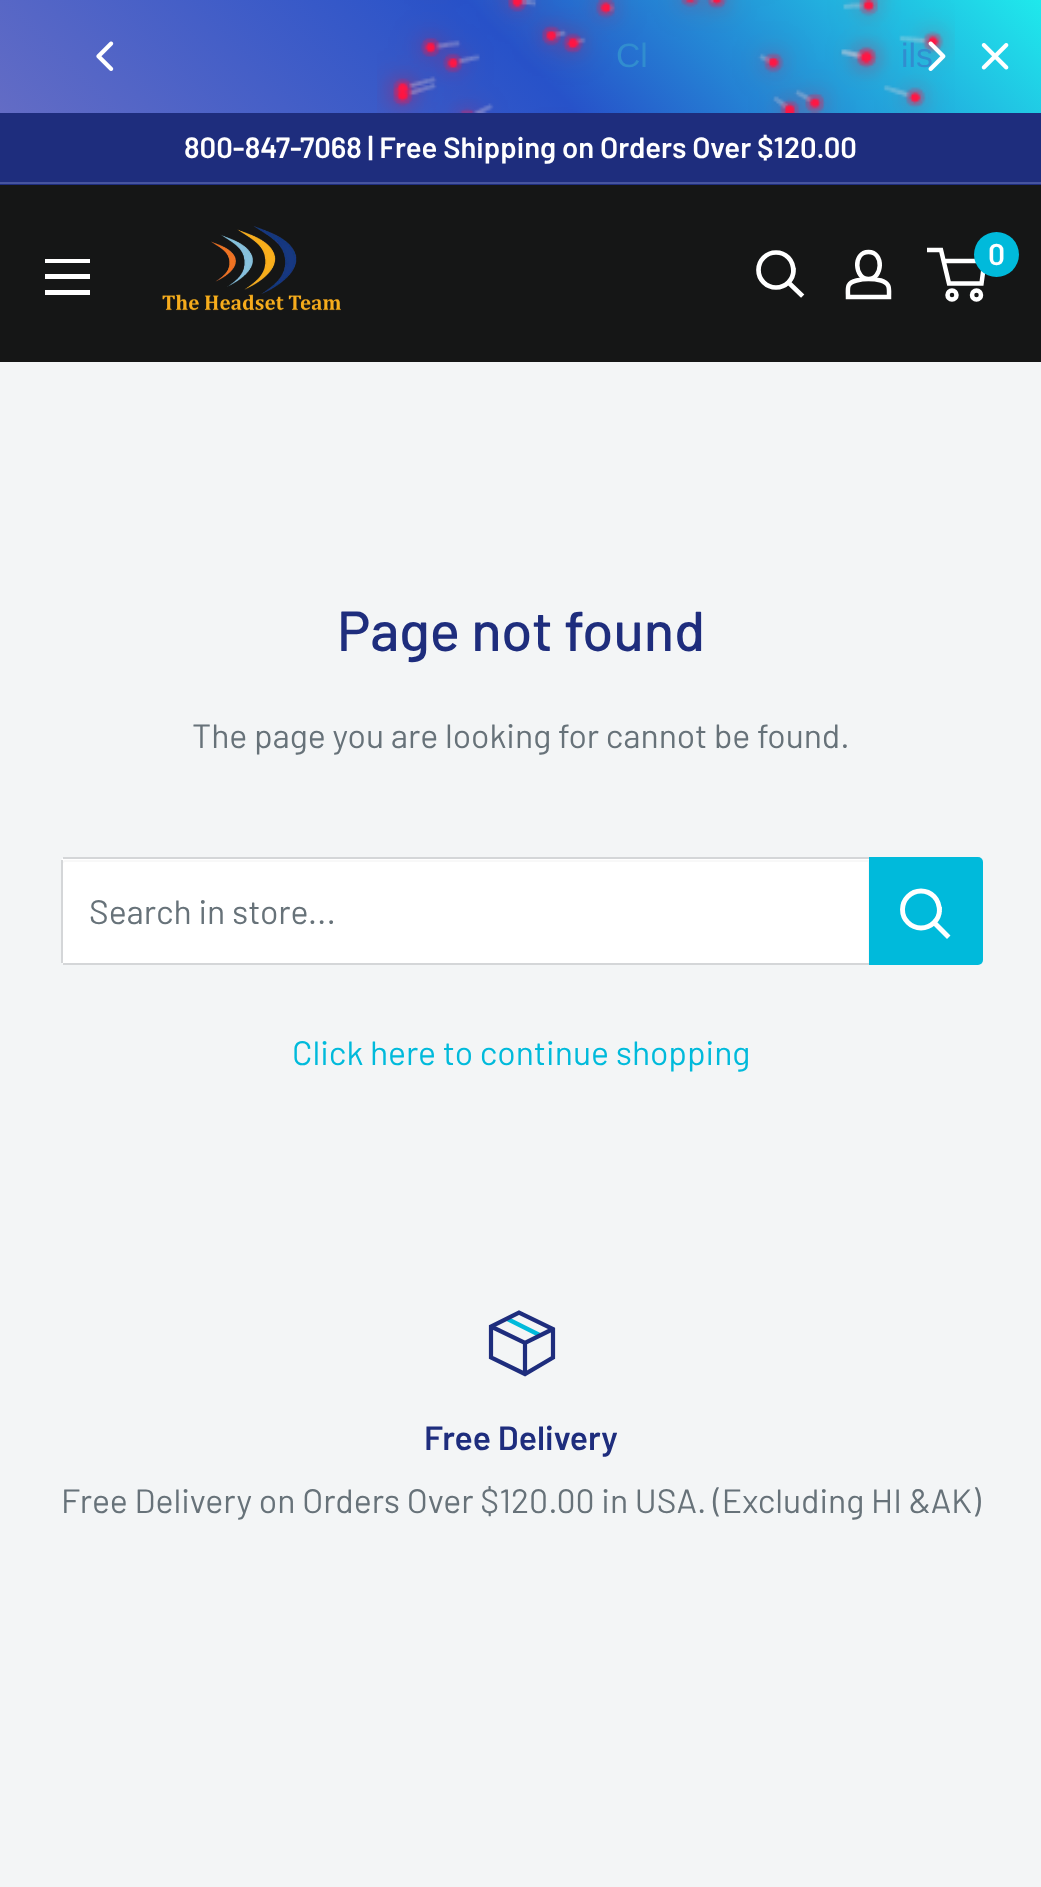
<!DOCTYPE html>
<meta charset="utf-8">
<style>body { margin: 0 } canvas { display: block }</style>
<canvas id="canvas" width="1041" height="1887"></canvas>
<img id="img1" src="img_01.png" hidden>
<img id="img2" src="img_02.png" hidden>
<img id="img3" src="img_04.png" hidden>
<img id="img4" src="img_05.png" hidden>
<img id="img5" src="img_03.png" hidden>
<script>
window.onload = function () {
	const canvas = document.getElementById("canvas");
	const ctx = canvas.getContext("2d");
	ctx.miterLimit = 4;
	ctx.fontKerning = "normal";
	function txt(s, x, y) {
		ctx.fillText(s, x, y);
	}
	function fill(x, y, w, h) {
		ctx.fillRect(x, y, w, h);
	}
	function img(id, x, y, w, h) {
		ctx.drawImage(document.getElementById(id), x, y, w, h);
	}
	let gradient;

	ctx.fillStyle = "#F3F5F6";
	fill(0, 0, 1041, 1887);
	gradient = ctx.createLinearGradient(232, 345, 809, -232);
	gradient.addColorStop(0, "#636CC5");
	gradient.addColorStop(0.5, "#2752C9");
	gradient.addColorStop(1, "#1FE9EC");
	ctx.fillStyle = gradient;
	fill(0, 0, 1041, 113);
	img("img1", 96, 41, 18, 30);
	img("img2", 377, 0, 578, 113);
	img("img3", 981, 43, 28, 27);
	ctx.fillStyle = "#1E2D7D";
	fill(0, 113, 1041, 72);
	ctx.fillStyle = "#46549F";
	fill(0, 182, 1041, 2);
	ctx.fillStyle = "#151616";
	fill(0, 185, 1041, 177);
	img("img4", 162, 226, 179, 85);
	ctx.beginPath();
	ctx.moveTo(801, 294.5);
	ctx.lineTo(789, 283);
	ctx.strokeStyle = "#FFFFFF";
	ctx.lineWidth = 4.7;
	ctx.lineCap = "square";
	ctx.stroke();
	ctx.beginPath();
	ctx.arc(776, 270, 17.5, 0, Math.PI * 2);
	ctx.stroke();
	ctx.beginPath();
	ctx.moveTo(868.5, 279);
	ctx.bezierCurveTo(872.5, 279, 877, 279.5, 881, 280.5);
	ctx.bezierCurveTo(890.5, 283.5, 889, 288.5, 889, 297);
	ctx.lineTo(848, 297);
	ctx.bezierCurveTo(848, 288, 846, 283, 856.5, 280.5);
	ctx.bezierCurveTo(860.5, 279.5, 864.5, 279, 868.5, 279);
	ctx.closePath();
	ctx.moveTo(868.5, 279);
	ctx.bezierCurveTo(854.5, 279, 852.5, 252, 868.5, 252);
	ctx.bezierCurveTo(884.5, 252, 882.5, 279, 868.5, 279);
	ctx.closePath();
	ctx.lineWidth = 4.5;
	ctx.lineCap = "butt";
	ctx.stroke();
	ctx.beginPath();
	ctx.arc(952, 295, 4.5, 0, Math.PI * 2);
	ctx.stroke();
	ctx.beginPath();
	ctx.arc(976.5, 295, 4.5, 0, Math.PI * 2);
	ctx.stroke();
	ctx.beginPath();
	ctx.moveTo(943.5, 261);
	ctx.lineTo(984.5, 261);
	ctx.lineTo(981.5, 283.5);
	ctx.lineTo(949, 283.5);
	ctx.lineTo(941, 250);
	ctx.lineTo(927, 250);
	ctx.stroke();
	ctx.fillStyle = "#00BADB";
	ctx.beginPath();
	ctx.arc(996.5, 254.5, 22.5, 0, Math.PI * 2);
	ctx.fill();
	ctx.fillStyle = "#FFFFFF";
	ctx.beginPath();
	ctx.moveTo(45, 290);
	ctx.lineTo(90, 290);
	ctx.lineTo(90, 295);
	ctx.lineTo(45, 295);
	ctx.closePath();
	ctx.moveTo(45, 259);
	ctx.lineTo(90, 259);
	ctx.lineTo(90, 263);
	ctx.lineTo(45, 263);
	ctx.closePath();
	ctx.moveTo(45, 274);
	ctx.lineTo(90, 274);
	ctx.lineTo(90, 279);
	ctx.lineTo(45, 279);
	ctx.closePath();
	ctx.fill("evenodd");
	ctx.beginPath();
	ctx.roundRect(61, 857, 808, 108, [5, 0, 0, 5]);
	ctx.fill();
	ctx.fillStyle = "#F8F8F8";
	ctx.beginPath();
	ctx.moveTo(65, 862);
	ctx.lineTo(868, 862);
	ctx.lineTo(868, 963);
	ctx.lineTo(869, 963);
	ctx.lineTo(869, 860);
	ctx.lineTo(65, 860);
	ctx.lineTo(63, 861);
	ctx.lineTo(63, 864);
	ctx.bezierCurveTo(63, 863, 64, 862, 65, 862);
	ctx.closePath();
	ctx.fill();
	ctx.fillStyle = "#D4D6D8";
	fill(63, 857, 806, 2);
	fill(63, 963, 806, 2);
	fill(61, 860, 2, 103);
	ctx.fillStyle = "#00BADB";
	ctx.beginPath();
	ctx.roundRect(869, 857, 114, 108, [0, 5, 5, 0]);
	ctx.fill();
	ctx.beginPath();
	ctx.moveTo(947, 935.5);
	ctx.lineTo(934.5, 923);
	ctx.lineWidth = 4.9;
	ctx.lineCap = "square";
	ctx.stroke();
	ctx.beginPath();
	ctx.arc(921, 909.5, 18.5, 0, Math.PI * 2);
	ctx.stroke();
	ctx.beginPath();
	ctx.moveTo(506.5, 1318.5);
	ctx.lineTo(540.5, 1335.5);
	ctx.strokeStyle = "#00BADB";
	ctx.lineWidth = 4.2;
	ctx.lineCap = "butt";
	ctx.stroke();
	ctx.beginPath();
	ctx.moveTo(553, 1329);
	ctx.lineTo(525, 1343);
	ctx.lineTo(491, 1326.5);
	ctx.moveTo(525, 1343);
	ctx.lineTo(525, 1374);
	ctx.strokeStyle = "#1E2D7D";
	ctx.stroke();
	ctx.beginPath();
	ctx.moveTo(553, 1329);
	ctx.lineTo(553, 1357.5);
	ctx.lineTo(525, 1374);
	ctx.lineTo(491, 1357.5);
	ctx.lineTo(491, 1326.5);
	ctx.lineTo(519, 1312.5);
	ctx.closePath();
	ctx.lineCap = "square";
	ctx.stroke();
	ctx.font = "33.75px Liberation Sans";
	ctx.fillStyle = "#318DCF";
	txt("Cl", 616, 67);
	txt("ils", 901, 67);
	img("img5", 928, 41, 18, 30);
	ctx.font = "600 29.25px Barlow";
	ctx.fillStyle = "#FFFFFF";
	txt("800-847-7068 | Free Shipping on Orders Over $120.00", 184, 158);
	ctx.font = "600 30px Barlow";
	txt("0", 988, 265);
	ctx.font = "500 56.25px Barlow";
	ctx.fillStyle = "#1E2D7D";
	txt("Page not found", 337, 651);
	ctx.font = "33.75px Barlow";
	ctx.fillStyle = "#677279";
	txt("The page you are looking for cannot be found.", 192, 748);
	txt("Search in store...", 89, 924);
	ctx.fillStyle = "#00BADB";
	txt("Click here to continue shopping", 292, 1065);
	ctx.font = "600 33.75px Barlow";
	ctx.fillStyle = "#1E2D7D";
	txt("Free Delivery", 424, 1450);
	ctx.font = "33.75px Barlow";
	ctx.fillStyle = "#677279";
	txt("Free Delivery on Orders Over $120.00 in USA. (Excluding HI &AK)", 61, 1513);
};
</script>
